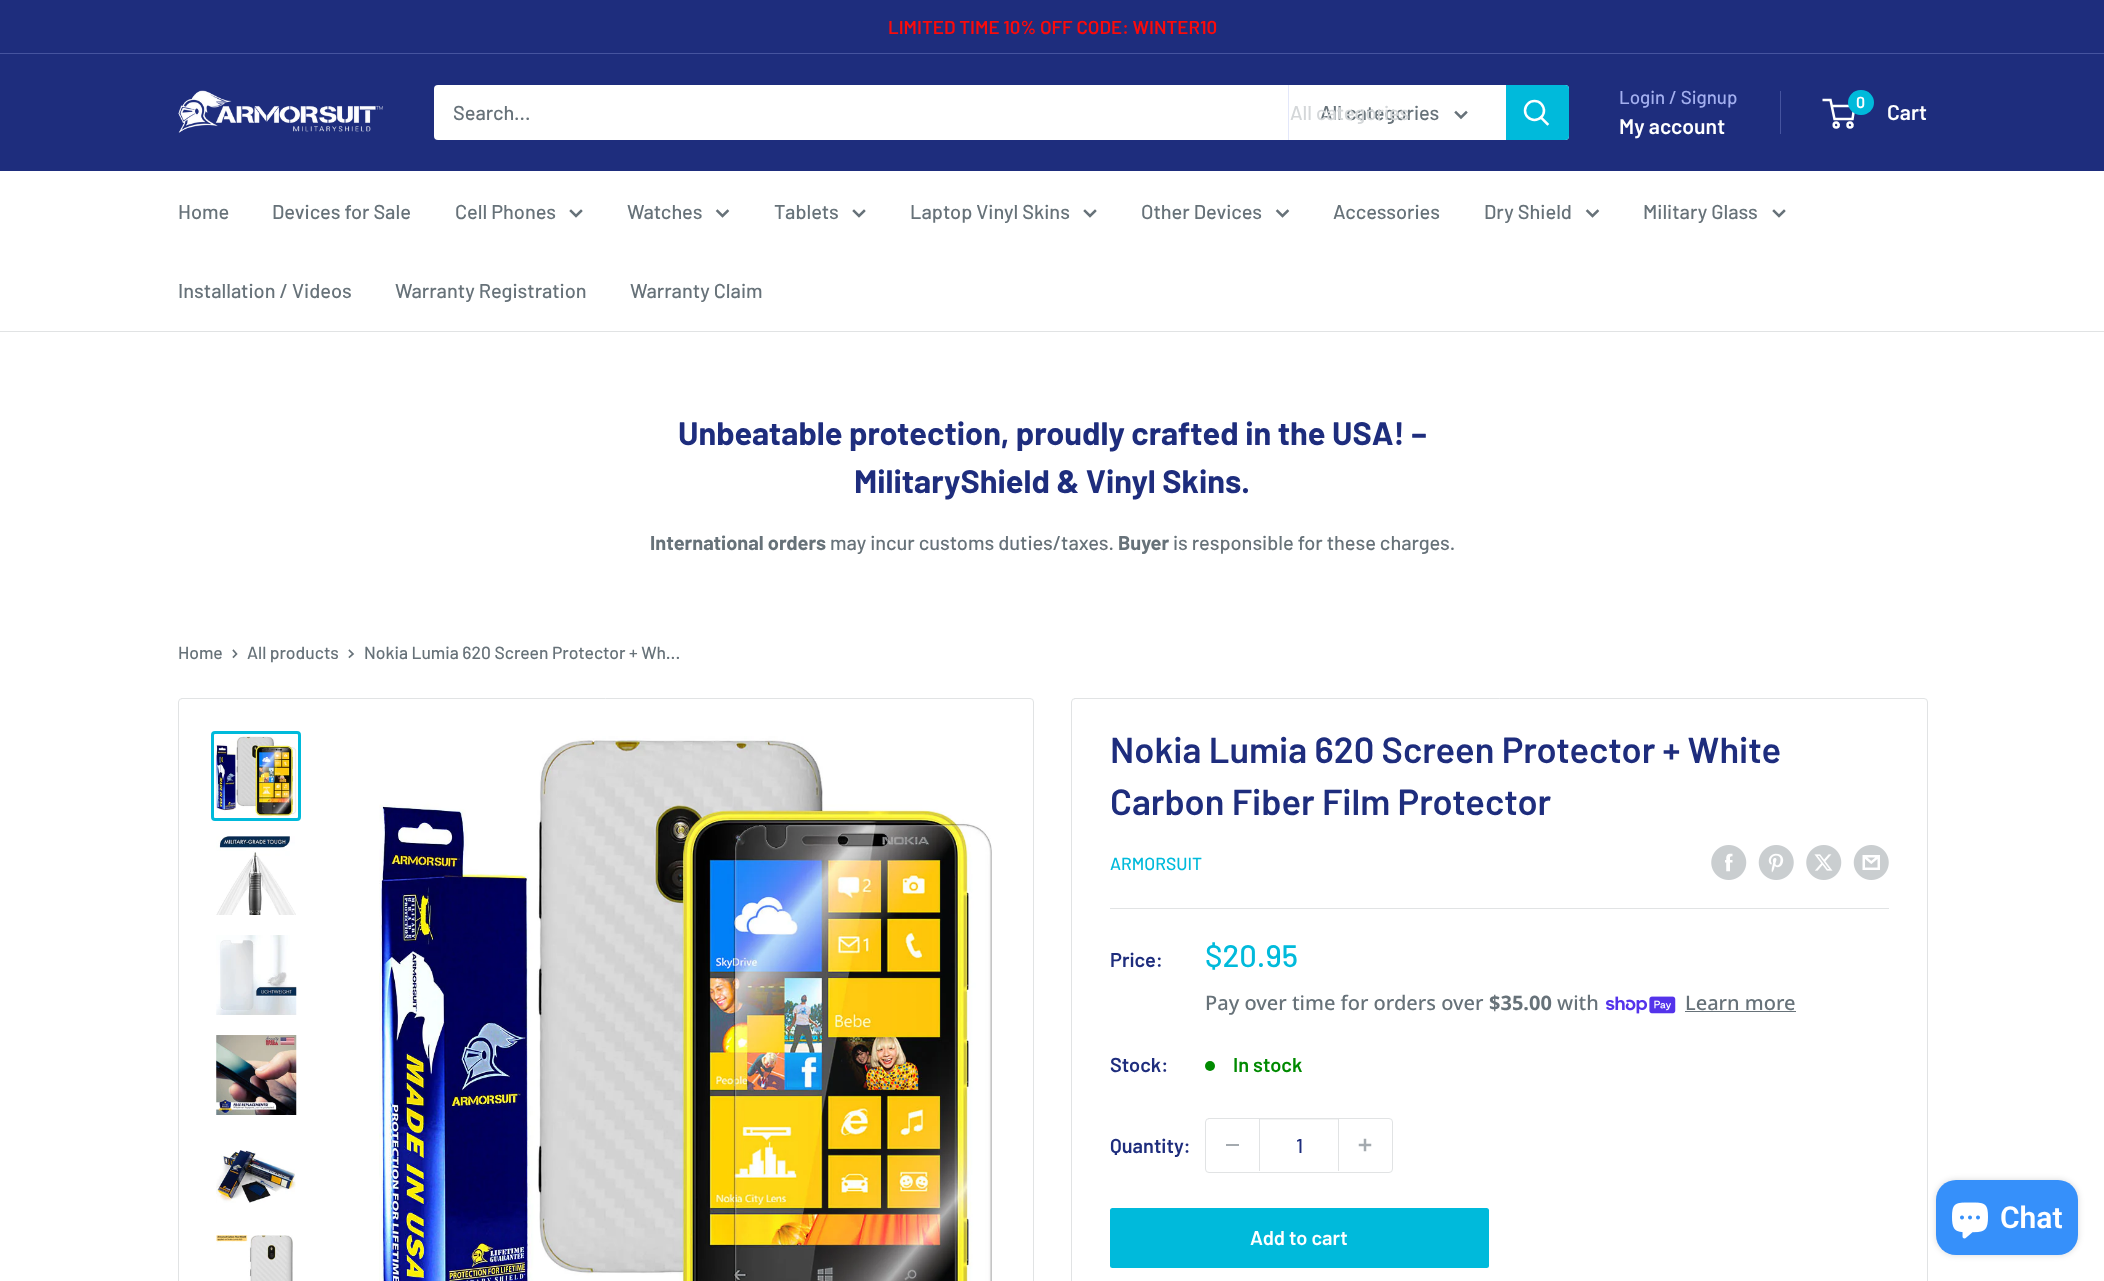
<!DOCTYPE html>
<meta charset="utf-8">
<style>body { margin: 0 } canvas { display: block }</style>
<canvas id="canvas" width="2104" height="1281"></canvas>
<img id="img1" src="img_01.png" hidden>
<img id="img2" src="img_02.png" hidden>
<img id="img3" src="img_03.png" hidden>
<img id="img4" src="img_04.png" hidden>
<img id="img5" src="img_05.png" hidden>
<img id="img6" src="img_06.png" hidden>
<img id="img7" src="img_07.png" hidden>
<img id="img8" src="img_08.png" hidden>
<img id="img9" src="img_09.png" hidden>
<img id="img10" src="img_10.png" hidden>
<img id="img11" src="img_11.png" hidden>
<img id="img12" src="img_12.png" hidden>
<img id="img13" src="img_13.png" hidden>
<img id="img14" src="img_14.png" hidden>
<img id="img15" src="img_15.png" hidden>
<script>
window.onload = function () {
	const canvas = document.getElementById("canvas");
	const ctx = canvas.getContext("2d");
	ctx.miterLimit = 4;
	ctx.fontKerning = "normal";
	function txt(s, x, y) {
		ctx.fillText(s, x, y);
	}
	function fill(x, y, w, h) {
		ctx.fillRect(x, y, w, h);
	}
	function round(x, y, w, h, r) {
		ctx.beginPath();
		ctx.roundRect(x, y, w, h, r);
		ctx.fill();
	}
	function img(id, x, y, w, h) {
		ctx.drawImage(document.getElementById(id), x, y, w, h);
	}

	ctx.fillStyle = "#FFFFFF";
	fill(0, 0, 2104, 1281);
	ctx.fillStyle = "#1E2D7D";
	fill(0, 0, 2104, 53);
	ctx.fillStyle = "#46549F";
	fill(0, 53, 2104, 1);
	ctx.fillStyle = "#1E2D7D";
	fill(0, 54, 2104, 117);
	img("img1", 178, 90, 205, 43);
	ctx.fillStyle = "#FFFFFF";
	round(434, 85, 1135, 55, 4);
	ctx.fillStyle = "#E3E7FA";
	fill(1288, 85, 1, 55);
	ctx.beginPath();
	ctx.moveTo(1466, 112.5);
	ctx.lineTo(1461, 117.5);
	ctx.lineTo(1456, 112.5);
	ctx.strokeStyle = "#677279";
	ctx.lineWidth = 2.5;
	ctx.lineCap = "square";
	ctx.stroke();
	ctx.fillStyle = "#00BADB";
	ctx.beginPath();
	ctx.roundRect(1506, 85, 63, 55, [0, 4, 4, 0]);
	ctx.fill();
	ctx.beginPath();
	ctx.moveTo(1547.5, 124);
	ctx.lineTo(1541, 117.5);
	ctx.strokeStyle = "#FFFFFF";
	ctx.stroke();
	ctx.beginPath();
	ctx.arc(1534.5, 110.5, 9.5, 0, Math.PI * 2);
	ctx.stroke();
	ctx.fillStyle = "#46549F";
	fill(1780, 91, 1, 43);
	ctx.beginPath();
	ctx.arc(1836.2, 125, 2.5, 0, Math.PI * 2);
	ctx.stroke();
	ctx.beginPath();
	ctx.arc(1850, 125, 2.5, 0, Math.PI * 2);
	ctx.stroke();
	ctx.beginPath();
	ctx.moveTo(1831.5, 106);
	ctx.lineTo(1854.5, 106);
	ctx.lineTo(1852.5, 119);
	ctx.lineTo(1834.5, 119);
	ctx.lineTo(1830.5, 100);
	ctx.lineTo(1822.5, 100);
	ctx.lineCap = "butt";
	ctx.stroke();
	ctx.fillStyle = "#00BADB";
	round(1848, 90, 26, 25, 12.5);
	ctx.fillStyle = "#E1E3E4";
	fill(0, 331, 2104, 1);
	ctx.beginPath();
	ctx.moveTo(581, 211);
	ctx.lineTo(576, 216);
	ctx.lineTo(571, 211);
	ctx.strokeStyle = "#677279";
	ctx.lineCap = "square";
	ctx.stroke();
	ctx.beginPath();
	ctx.moveTo(727.5, 211);
	ctx.lineTo(722.5, 216);
	ctx.lineTo(717.5, 211);
	ctx.stroke();
	ctx.beginPath();
	ctx.moveTo(864, 211);
	ctx.lineTo(859, 216);
	ctx.lineTo(854, 211);
	ctx.stroke();
	ctx.beginPath();
	ctx.moveTo(1095, 211);
	ctx.lineTo(1090, 216);
	ctx.lineTo(1085, 211);
	ctx.stroke();
	ctx.beginPath();
	ctx.moveTo(1287.5, 211);
	ctx.lineTo(1282.5, 216);
	ctx.lineTo(1277.5, 211);
	ctx.stroke();
	ctx.beginPath();
	ctx.moveTo(1597.5, 211);
	ctx.lineTo(1592.5, 216);
	ctx.lineTo(1587.5, 211);
	ctx.stroke();
	ctx.beginPath();
	ctx.moveTo(1784, 211);
	ctx.lineTo(1779, 216);
	ctx.lineTo(1774, 211);
	ctx.stroke();
	ctx.beginPath();
	ctx.moveTo(233.5, 650.5);
	ctx.lineTo(236.5, 654);
	ctx.lineTo(233.5, 657);
	ctx.lineWidth = 1.7;
	ctx.stroke();
	ctx.beginPath();
	ctx.moveTo(349.5, 650.5);
	ctx.lineTo(353, 654);
	ctx.lineTo(349.5, 657);
	ctx.stroke();
	ctx.beginPath();
	ctx.roundRect(178.5, 698.5, 855, 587, 3.5);
	ctx.strokeStyle = "#E1E3E4";
	ctx.lineWidth = 1;
	ctx.stroke();
	ctx.beginPath();
	ctx.roundRect(212.5, 732.5, 87, 87, 2.5);
	ctx.strokeStyle = "#00BADB";
	ctx.lineWidth = 3;
	ctx.stroke();
	img("img2", 216, 736, 81, 81);
	img("img3", 216, 836, 80, 79);
	img("img4", 216, 935, 81, 80);
	img("img5", 216, 1035, 81, 80);
	img("img6", 216, 1150, 80, 53);
	img("img7", 216, 1235, 77, 46);
	img("img8", 379, 736, 613, 545);
	ctx.beginPath();
	ctx.roundRect(1071.5, 698.5, 856, 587, 3.5);
	ctx.strokeStyle = "#E1E3E4";
	ctx.lineWidth = 1;
	ctx.stroke();
	img("img9", 1711, 845, 36, 35);
	img("img10", 1758, 845, 36, 35);
	img("img11", 1806, 845, 36, 35);
	img("img12", 1853, 845, 36, 35);
	fill(1110, 908, 779, 1);
	img("img13", 1606, 996, 70, 18);
	ctx.fillStyle = "#677279";
	fill(1685, 1011, 111, 1);
	ctx.fillStyle = "#008A00";
	ctx.beginPath();
	ctx.arc(1210, 1066, 5, 0, Math.PI * 2);
	ctx.fill();
	ctx.beginPath();
	ctx.roundRect(1205.5, 1118.5, 187, 54, 3.5);
	ctx.stroke();
	ctx.fillStyle = "#A4AAAF";
	fill(1226, 1144, 13, 2);
	ctx.fillStyle = "#F3F4F4";
	fill(1260, 1119, 78, 1);
	ctx.fillStyle = "#E1E3E4";
	fill(1338, 1119, 1, 52);
	fill(1259, 1119, 1, 52);
	img("img14", 1358, 1138, 14, 14);
	ctx.fillStyle = "#00BADB";
	round(1110, 1208, 379, 60, 2.5);
	ctx.fillStyle = "rgba(0, 0, 0, 0.15)";
	ctx.filter = "blur(3px)";
	ctx.beginPath();
	ctx.roundRect(1936, 1180, 142, 75, 20);
	ctx.fill();
	ctx.filter = "none";
	ctx.fillStyle = "#3690FA";
	round(1936, 1180, 142, 75, 20);
	img("img15", 1952, 1202, 36, 37);
	ctx.font = "600 18.75px Barlow";
	ctx.fillStyle = "#FA0B0B";
	txt("LIMITED TIME 10% OFF CODE: WINTER10", 888, 34);
	ctx.font = "500 20px Barlow";
	ctx.fillStyle = "#677279";
	txt("Search...", 453, 120);
	txt("All categories", 1320, 120);
	ctx.fillStyle = "#D4D7D9";
	txt("All categories", 1290, 120);
	ctx.font = "500 18.75px Barlow";
	ctx.fillStyle = "#A3AFEF";
	txt("Login / Signup", 1619, 104);
	ctx.font = "600 21.25px Barlow";
	ctx.fillStyle = "#FFFFFF";
	txt("My account", 1619, 134);
	ctx.font = "600 16px Barlow";
	txt("0", 1856, 108);
	ctx.font = "600 21.25px Barlow";
	txt("Cart", 1887, 120);
	ctx.font = "500 20px Barlow";
	ctx.fillStyle = "#677279";
	txt("Home", 178, 219);
	txt("Devices for Sale", 272, 219);
	txt("Cell Phones", 455, 219);
	txt("Watches", 627, 219);
	txt("Tablets", 774, 219);
	txt("Laptop Vinyl Skins", 910, 219);
	txt("Other Devices", 1141, 219);
	txt("Accessories", 1333, 219);
	txt("Dry Shield", 1484, 219);
	txt("Military Glass", 1643, 219);
	txt("Installation / Videos", 178, 298);
	txt("Warranty Registration", 395, 298);
	txt("Warranty Claim", 630, 298);
	ctx.font = "bold 32.5px Barlow";
	ctx.fillStyle = "#1E2D7D";
	txt("Unbeatable protection, proudly crafted in the USA! –", 678, 445);
	txt("MilitaryShield & Vinyl Skins.", 854, 493);
	ctx.font = "bold 20px Barlow";
	ctx.fillStyle = "#677279";
	txt("International orders", 650, 550);
	ctx.font = "500 20px Barlow";
	txt("may incur customs duties/taxes.", 830, 550);
	ctx.font = "bold 20px Barlow";
	txt("Buyer", 1118, 550);
	ctx.font = "500 20px Barlow";
	txt("is responsible for these charges.", 1173, 550);
	ctx.font = "500 17.5px Barlow";
	txt("Home", 178, 659);
	txt("All products", 247, 659);
	txt("Nokia Lumia 620 Screen Protector + Wh...", 364, 659);
	ctx.font = "600 36.25px Barlow";
	ctx.fillStyle = "#1E2D7D";
	txt("Nokia Lumia 620 Screen Protector + White", 1110, 763);
	txt("Carbon Fiber Film Protector", 1110, 815);
	ctx.font = "500 17.5px Barlow";
	ctx.fillStyle = "#00BADB";
	txt("ARMORSUIT", 1110, 870);
	ctx.font = "600 20px Barlow";
	ctx.fillStyle = "#1E2D7D";
	txt("Price:", 1110, 967);
	ctx.font = "500 31px Barlow";
	ctx.fillStyle = "#00BADB";
	txt("$20.95", 1205, 967);
	ctx.font = "500 20px Noto Sans";
	ctx.fillStyle = "#677279";
	txt("Pay over time for orders over", 1205, 1010);
	ctx.font = "bold 20px Noto Sans";
	txt("$35.00", 1489, 1010);
	ctx.font = "500 20px Noto Sans";
	txt("with", 1557, 1010);
	txt("Learn more", 1685, 1010);
	ctx.font = "600 20px Barlow";
	ctx.fillStyle = "#1E2D7D";
	txt("Stock:", 1110, 1072);
	ctx.fillStyle = "#008A00";
	txt("In stock", 1233, 1072);
	ctx.fillStyle = "#1E2D7D";
	txt("Quantity:", 1110, 1153);
	ctx.font = "500 20px Barlow";
	txt("1", 1296, 1153);
	ctx.font = "600 20px Barlow";
	ctx.fillStyle = "#FFFFFF";
	txt("Add to cart", 1250, 1245);
	ctx.font = "600 30px Roboto";
	txt("Chat", 2000, 1228);
};
</script>
